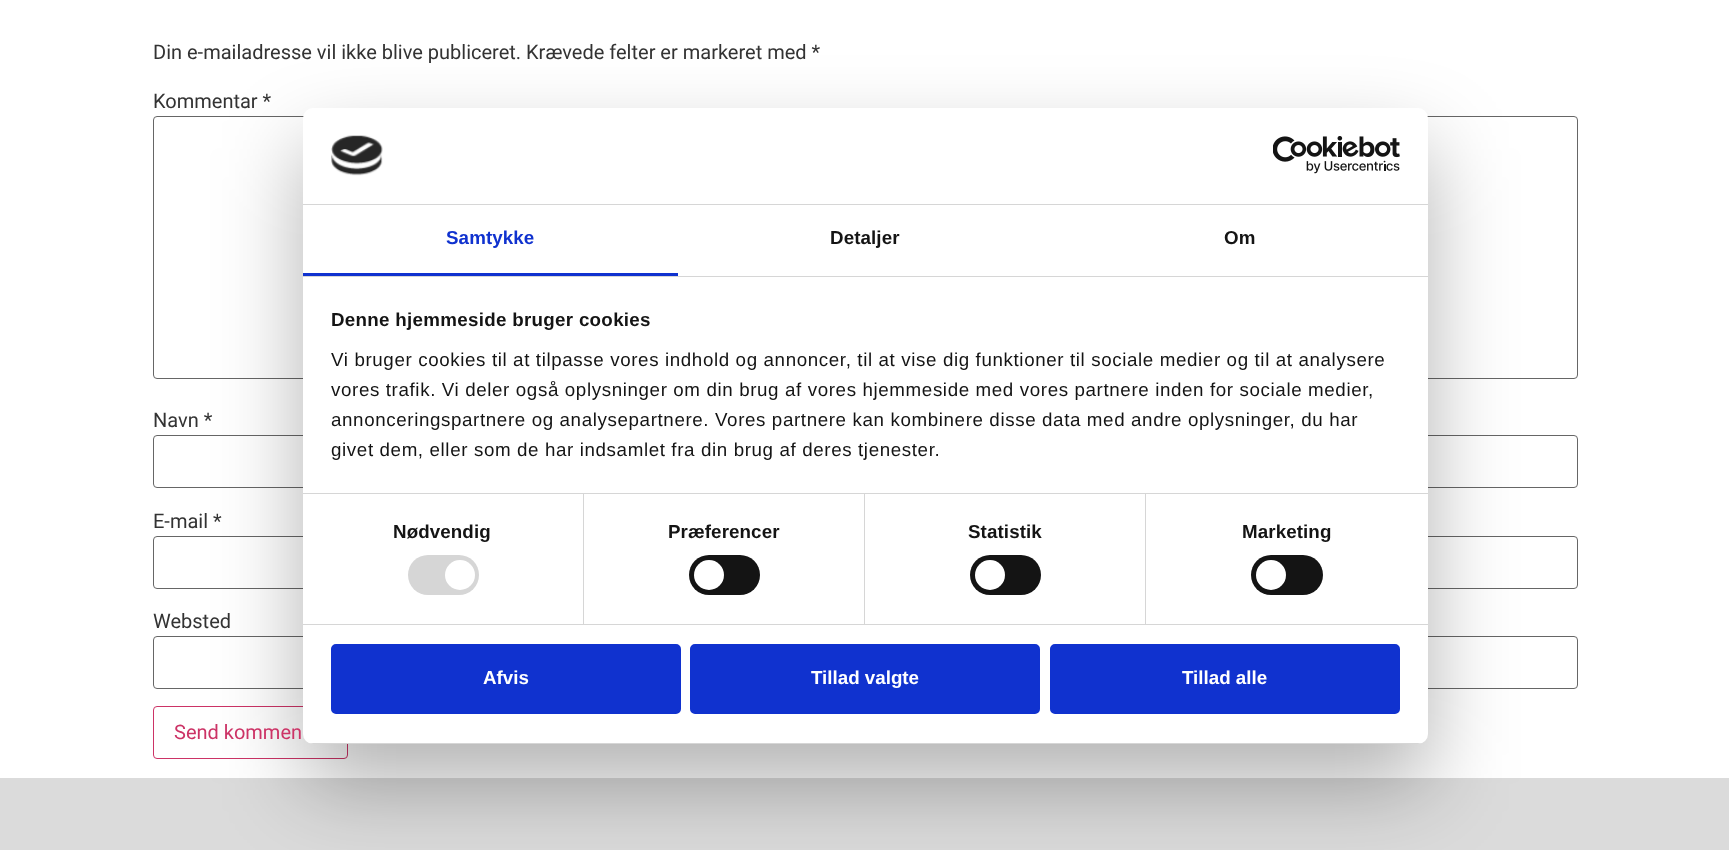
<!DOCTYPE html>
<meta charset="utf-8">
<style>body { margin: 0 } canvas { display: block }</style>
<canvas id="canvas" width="1729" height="850"></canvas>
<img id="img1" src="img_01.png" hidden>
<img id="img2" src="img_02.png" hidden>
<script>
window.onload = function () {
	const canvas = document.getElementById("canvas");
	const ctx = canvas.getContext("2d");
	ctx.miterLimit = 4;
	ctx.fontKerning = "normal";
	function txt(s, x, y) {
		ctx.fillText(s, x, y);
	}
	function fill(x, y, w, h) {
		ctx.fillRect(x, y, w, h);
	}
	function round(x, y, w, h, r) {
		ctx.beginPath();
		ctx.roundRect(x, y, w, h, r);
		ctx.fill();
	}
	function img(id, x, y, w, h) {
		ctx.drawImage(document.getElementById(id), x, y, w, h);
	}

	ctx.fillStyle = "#FFFFFF";
	fill(0, 0, 1729, 850);
	ctx.beginPath();
	ctx.roundRect(153.5, 116.5, 1424, 262, 3.5);
	ctx.strokeStyle = "#666666";
	ctx.stroke();
	ctx.beginPath();
	ctx.roundRect(153.5, 435.5, 1424, 52, 3.5);
	ctx.stroke();
	ctx.beginPath();
	ctx.roundRect(153.5, 536.5, 1424, 52, 3.5);
	ctx.stroke();
	ctx.beginPath();
	ctx.roundRect(153.5, 636.5, 1424, 52, 3.5);
	ctx.stroke();
	ctx.beginPath();
	ctx.roundRect(153.5, 706.5, 194, 52, 3.5);
	ctx.strokeStyle = "#CC3366";
	ctx.stroke();
	ctx.fillStyle = "#DBDBDB";
	fill(0, 778, 1729, 72);
	ctx.fillStyle = "rgba(0, 0, 0, 0.3)";
	ctx.filter = "blur(42.5px)";
	ctx.beginPath();
	ctx.roundRect(303, 148, 1125, 636, 10);
	ctx.fill();
	ctx.filter = "none";
	ctx.fillStyle = "#FFFFFF";
	round(303, 108, 1125, 636, 10);
	ctx.fillStyle = "#D6D6D6";
	fill(303, 204, 1125, 1);
	img("img1", 331, 135, 52, 41);
	img("img2", 1273, 136, 127, 38);
	fill(303, 276, 1125, 1);
	ctx.fillStyle = "#1032CF";
	fill(303, 273, 375, 3);
	ctx.fillStyle = "#D6D6D6";
	fill(303, 493, 1125, 1);
	fill(303, 624, 1125, 1);
	fill(583, 494, 1, 130);
	round(408, 555, 71, 40, 20);
	ctx.fillStyle = "#FFFFFF";
	ctx.beginPath();
	ctx.arc(460, 575, 15, 0, Math.PI * 2);
	ctx.fill();
	ctx.fillStyle = "#D6D6D6";
	fill(864, 494, 1, 130);
	ctx.fillStyle = "#141414";
	round(689, 555, 71, 40, 20);
	ctx.fillStyle = "#FFFFFF";
	ctx.beginPath();
	ctx.arc(709, 575, 15, 0, Math.PI * 2);
	ctx.fill();
	ctx.fillStyle = "#D6D6D6";
	fill(1145, 494, 1, 130);
	ctx.fillStyle = "#141414";
	round(970, 555, 71, 40, 20);
	ctx.fillStyle = "#FFFFFF";
	ctx.beginPath();
	ctx.arc(990, 575, 15, 0, Math.PI * 2);
	ctx.fill();
	ctx.fillStyle = "#141414";
	round(1251, 555, 72, 40, 20);
	ctx.fillStyle = "#FFFFFF";
	ctx.beginPath();
	ctx.arc(1271, 575, 15, 0, Math.PI * 2);
	ctx.fill();
	ctx.save();
	ctx.beginPath();
	ctx.roundRect(303, 108, 1125, 636, 10);
	ctx.clip();
	ctx.fillStyle = "#D6D6D6";
	fill(303, 743, 1125, 1);
	ctx.restore();
	ctx.fillStyle = "#1032CF";
	ctx.beginPath();
	ctx.roundRect(332.5, 645.5, 347, 67, 3.5);
	ctx.fill();
	ctx.strokeStyle = "#1032CF";
	ctx.lineWidth = 3;
	ctx.stroke();
	ctx.beginPath();
	ctx.roundRect(691.5, 645.5, 347, 67, 3.5);
	ctx.fill();
	ctx.stroke();
	ctx.beginPath();
	ctx.roundRect(1051.5, 645.5, 347, 67, 3.5);
	ctx.fill();
	ctx.stroke();
	ctx.font = "20px Roboto";
	ctx.fillStyle = "#333333";
	txt("Din e-mailadresse vil ikke blive publiceret. Krævede felter er markeret med *", 153, 59);
	txt("Kommentar *", 153, 108);
	txt("Navn *", 153, 427);
	txt("E-mail *", 153, 528);
	txt("Websted", 153, 628);
	ctx.fillStyle = "#CC3366";
	txt("Send kommen", 174, 739);
	ctx.letterSpacing = "0.1px";
	ctx.font = "bold 18.75px Liberation Sans";
	ctx.fillStyle = "#1032CF";
	txt("Samtykke", 446, 244);
	ctx.fillStyle = "#141414";
	txt("Detaljer", 830, 244);
	txt("Om", 1224, 244);
	ctx.letterSpacing = "0.3px";
	txt("Denne hjemmeside bruger cookies", 331, 326);
	ctx.letterSpacing = "0.62px";
	ctx.font = "18.75px Liberation Sans";
	txt("Vi bruger cookies til at tilpasse vores indhold og annoncer, til at vise dig funktioner til sociale medier og til at analysere", 331, 366);
	txt("vores trafik. Vi deler også oplysninger om din brug af vores hjemmeside med vores partnere inden for sociale medier,", 331, 396);
	txt("annonceringspartnere og analysepartnere. Vores partnere kan kombinere disse data med andre oplysninger, du har", 331, 426);
	txt("givet dem, eller som de har indsamlet fra din brug af deres tjenester.", 331, 456);
	ctx.letterSpacing = "0.1px";
	ctx.font = "bold 18.75px Liberation Sans";
	txt("Nødvendig", 393, 538);
	txt("Præferencer", 668, 538);
	txt("Statistik", 968, 538);
	txt("Marketing", 1242, 538);
	ctx.letterSpacing = "0px";
	ctx.fillStyle = "#FFFFFF";
	txt("Afvis", 483, 684);
	txt("Tillad valgte", 811, 684);
	txt("Tillad alle", 1182, 684);
};
</script>
